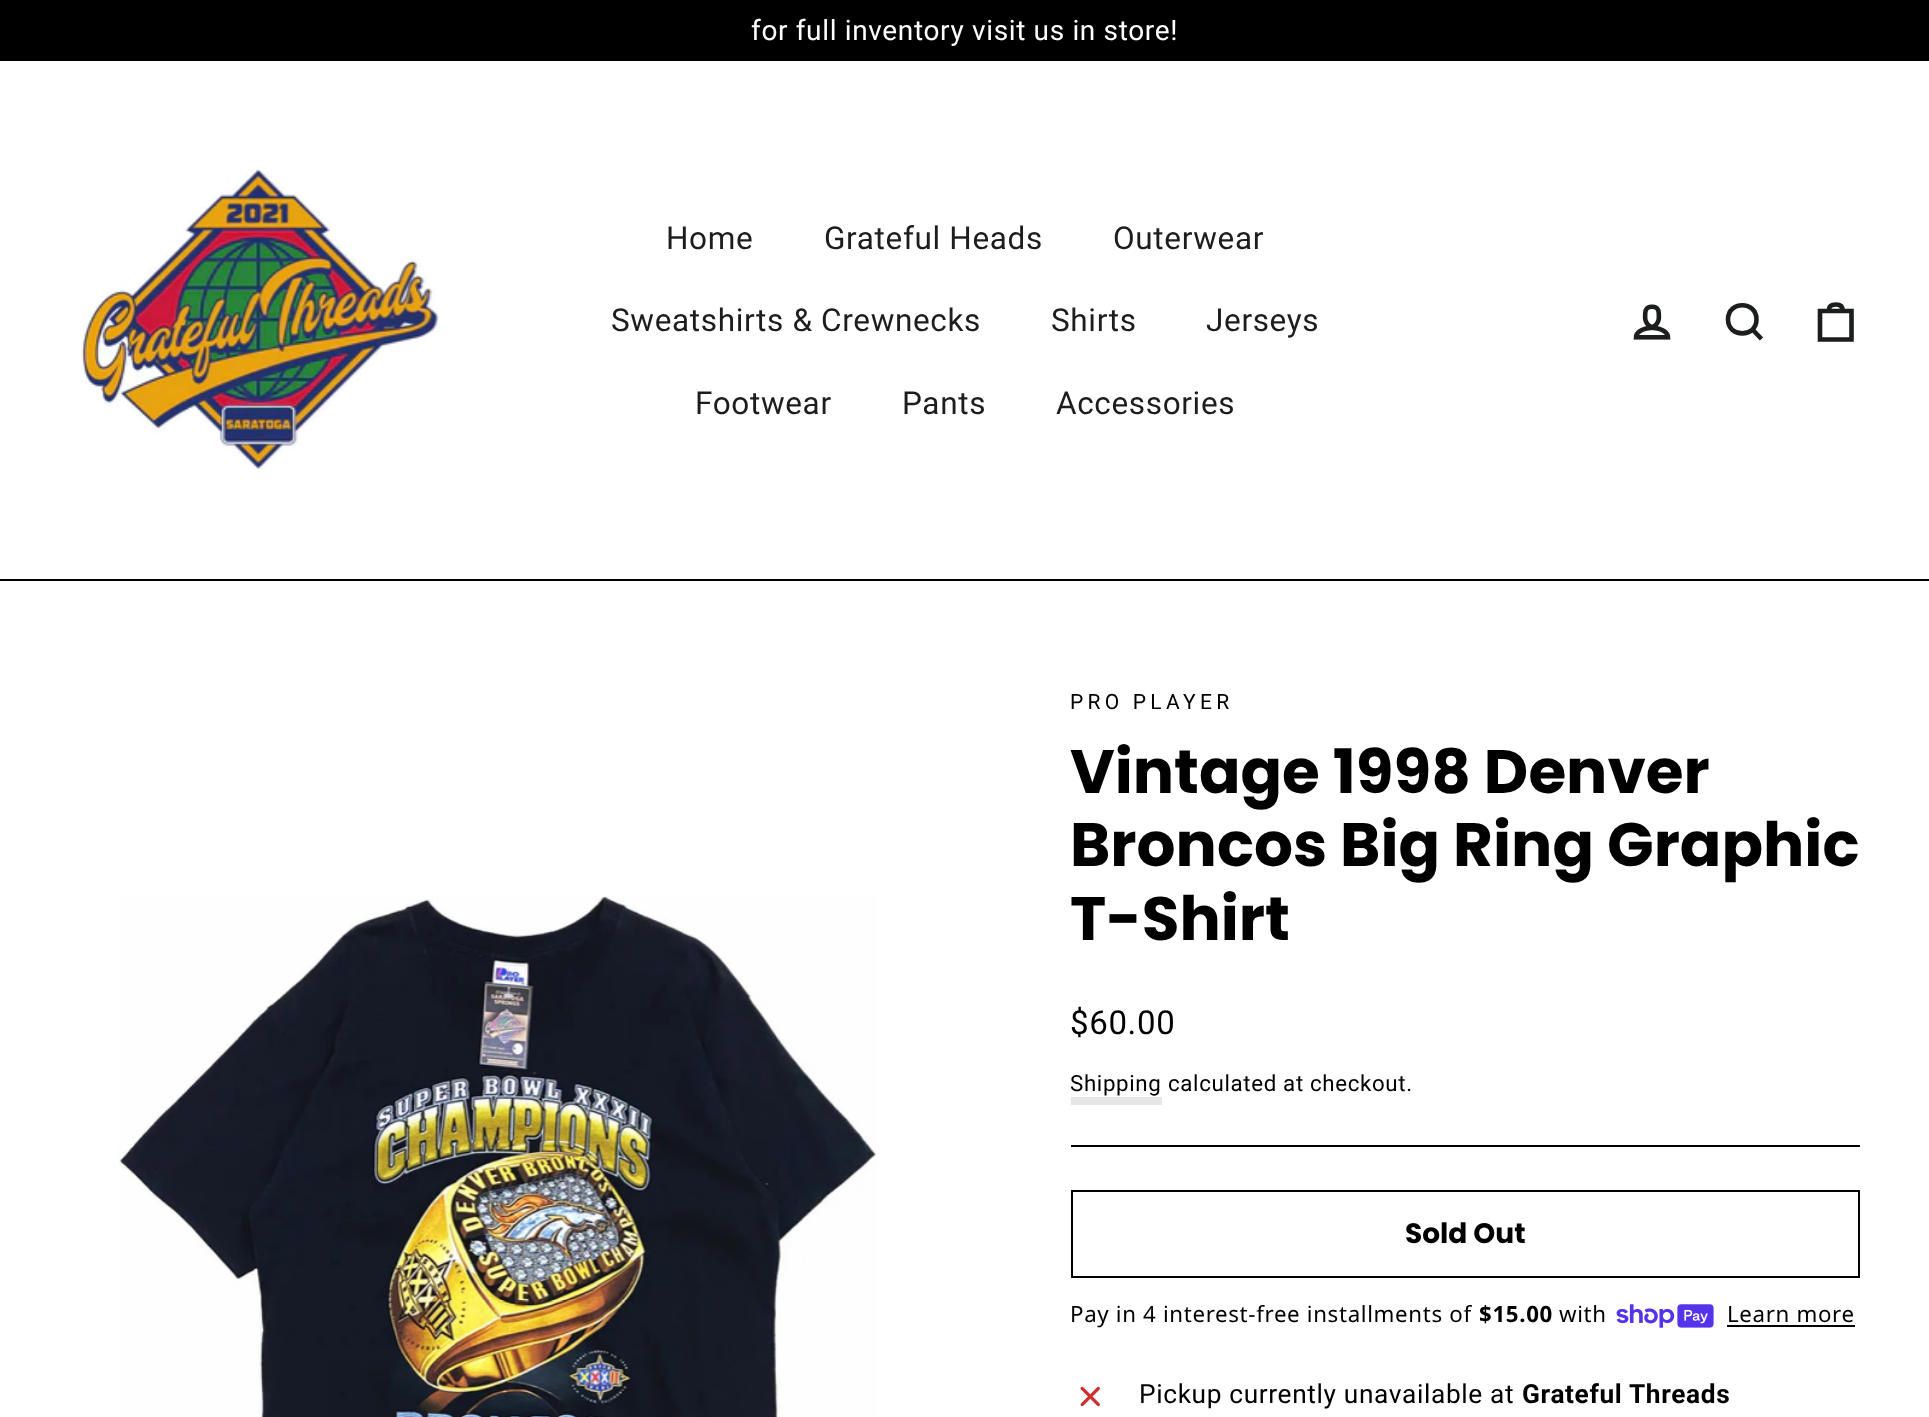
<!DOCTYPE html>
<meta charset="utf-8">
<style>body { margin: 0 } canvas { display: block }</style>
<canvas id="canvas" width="1929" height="1417"></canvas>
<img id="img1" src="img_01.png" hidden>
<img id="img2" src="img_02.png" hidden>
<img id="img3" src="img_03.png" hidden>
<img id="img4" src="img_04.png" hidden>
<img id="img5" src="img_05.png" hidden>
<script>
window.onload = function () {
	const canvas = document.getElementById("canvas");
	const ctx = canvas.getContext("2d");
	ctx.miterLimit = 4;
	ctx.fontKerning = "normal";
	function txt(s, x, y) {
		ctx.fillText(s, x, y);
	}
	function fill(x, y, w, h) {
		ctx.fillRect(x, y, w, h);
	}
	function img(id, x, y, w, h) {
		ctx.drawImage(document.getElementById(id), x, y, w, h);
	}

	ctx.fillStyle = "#FFFFFF";
	fill(0, 0, 1929, 1417);
	ctx.fillStyle = "#000000";
	fill(0, 0, 1929, 61);
	fill(0, 579, 1929, 2);
	img("img1", 81, 169, 359, 300);
	img("img2", 1633, 304, 38, 36);
	ctx.beginPath();
	ctx.moveTo(1756.5, 319.5);
	ctx.bezierCurveTo(1756.5, 338, 1728, 338, 1728, 319.5);
	ctx.bezierCurveTo(1728, 300.5, 1756.5, 300.5, 1756.5, 319.5);
	ctx.closePath();
	ctx.moveTo(1761.5, 339);
	ctx.lineTo(1752.5, 329.5);
	ctx.strokeStyle = "#1C1D1D";
	ctx.lineWidth = 4.6;
	ctx.stroke();
	ctx.beginPath();
	ctx.moveTo(1820, 311);
	ctx.lineTo(1851.5, 311);
	ctx.lineTo(1851.5, 339.5);
	ctx.lineTo(1820, 339.5);
	ctx.closePath();
	ctx.moveTo(1828.5, 311.5);
	ctx.bezierCurveTo(1828.5, 306, 1831.5, 304.5, 1836, 304.5);
	ctx.bezierCurveTo(1840, 304.5, 1843, 306, 1843, 311.5);
	ctx.stroke();
	img("img3", 118, 896, 759, 521);
	ctx.fillStyle = "#E6E6E6";
	fill(1071, 1097, 91, 8);
	ctx.fillStyle = "#000000";
	fill(1071, 1145, 789, 2);
	ctx.strokeStyle = "#000000";
	ctx.lineWidth = 2;
	ctx.strokeRect(1072, 1191, 787, 86);
	img("img4", 1616, 1304, 98, 24);
	fill(1727, 1325, 128, 2);
	img("img5", 1080, 1386, 20, 21);
	ctx.letterSpacing = "0.65px";
	ctx.font = "28px Roboto";
	ctx.fillStyle = "#FFFFFF";
	txt("for full inventory visit us in store!", 751, 40);
	ctx.font = "31.5px Roboto";
	ctx.fillStyle = "#1C1D1D";
	txt("Home", 666, 249);
	txt("Grateful Heads", 824, 249);
	txt("Outerwear", 1113, 249);
	txt("Sweatshirts & Crewnecks", 611, 331);
	txt("Shirts", 1051, 331);
	txt("Jerseys", 1206, 331);
	txt("Footwear", 695, 414);
	txt("Pants", 902, 414);
	txt("Accessories", 1056, 414);
	ctx.letterSpacing = "4.25px";
	ctx.font = "21px Roboto";
	ctx.fillStyle = "#000000";
	txt("PRO PLAYER", 1070, 709);
	ctx.letterSpacing = "0px";
	ctx.font = "bold 61.25px Poppins";
	txt("Vintage 1998 Denver", 1070, 793);
	txt("Broncos Big Ring Graphic", 1070, 866);
	txt("T-Shirt", 1070, 940);
	ctx.letterSpacing = "0.65px";
	ctx.font = "33px Roboto";
	txt("$60.00", 1070, 1034);
	ctx.font = "22.3px Roboto";
	txt("Shipping", 1070, 1091);
	txt("calculated at checkout.", 1168, 1091);
	ctx.letterSpacing = "0px";
	ctx.font = "bold 28px Poppins";
	txt("Sold Out", 1405, 1243);
	ctx.letterSpacing = "0.65px";
	ctx.font = "22.3px Noto Sans";
	txt("Pay in 4 interest-free installments of", 1070, 1322);
	ctx.font = "bold 22.3px Noto Sans";
	txt("$15.00", 1479, 1322);
	ctx.font = "22.3px Noto Sans";
	txt("with", 1559, 1322);
	txt("Learn more", 1727, 1322);
	ctx.font = "26.25px Roboto";
	txt("Pickup currently unavailable at", 1139, 1403);
	ctx.font = "bold 26.25px Roboto";
	txt("Grateful Threads", 1522, 1403);
};
</script>
